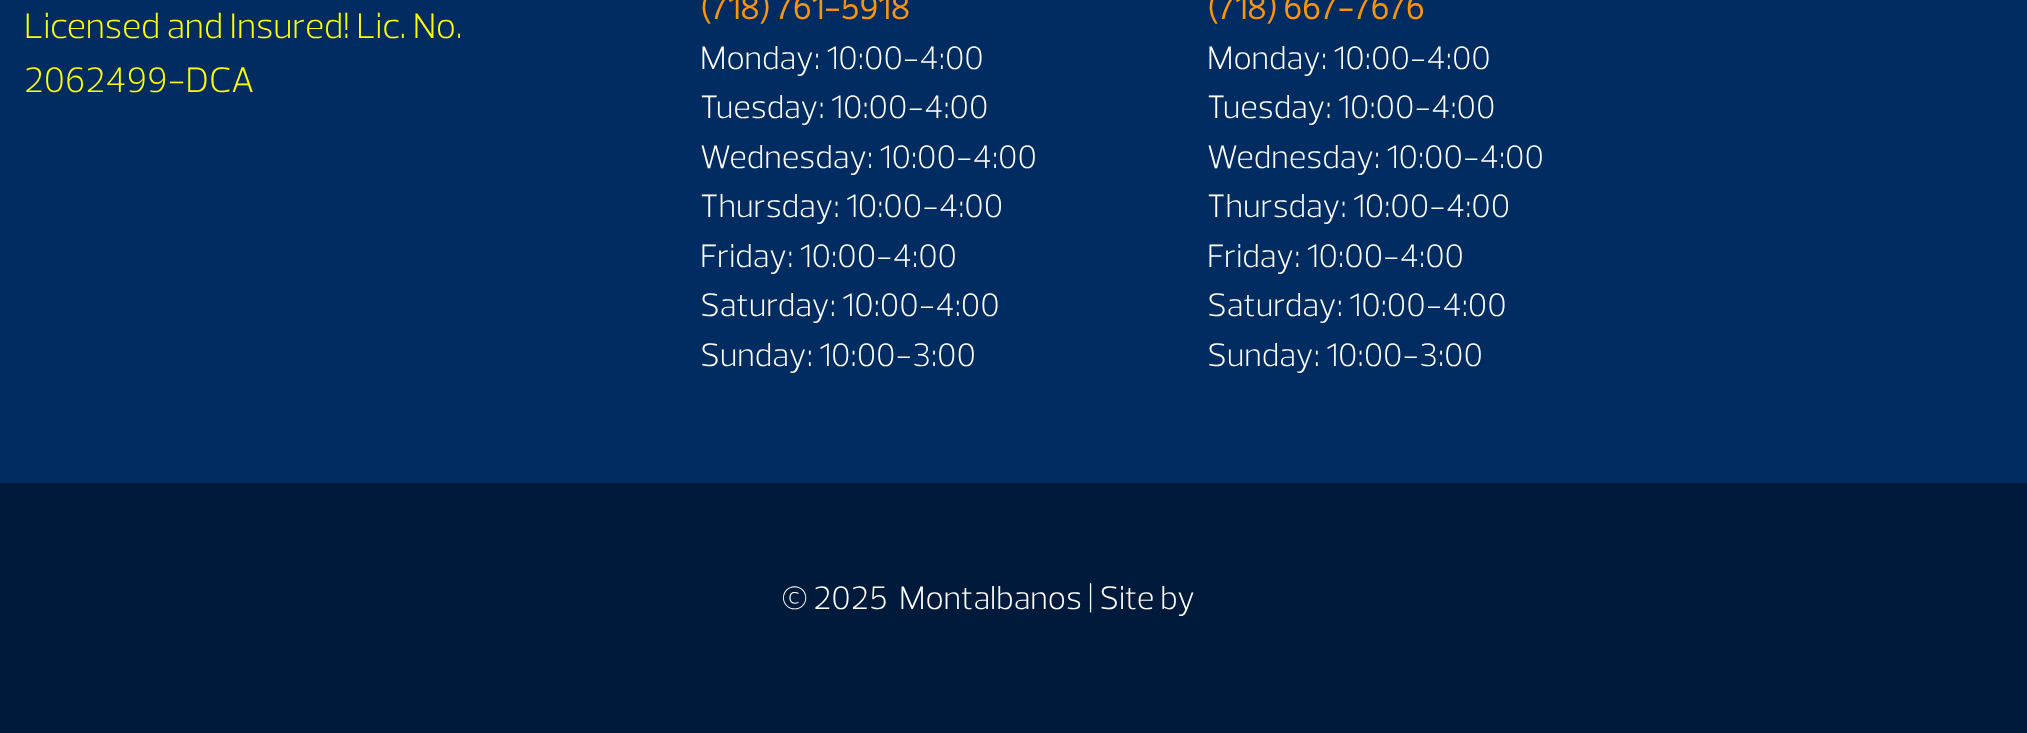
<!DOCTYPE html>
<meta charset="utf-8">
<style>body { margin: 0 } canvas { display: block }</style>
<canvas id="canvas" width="2027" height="733"></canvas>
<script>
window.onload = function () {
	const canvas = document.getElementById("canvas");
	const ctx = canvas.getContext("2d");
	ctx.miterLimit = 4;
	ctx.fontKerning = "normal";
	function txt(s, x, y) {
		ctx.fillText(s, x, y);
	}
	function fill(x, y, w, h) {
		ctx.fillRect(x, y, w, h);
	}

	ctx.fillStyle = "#002C62";
	fill(0, 0, 2027, 733);
	ctx.fillStyle = "#001A3B";
	fill(0, 483, 2027, 250);
	ctx.font = "300 36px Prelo";
	ctx.fillStyle = "#FFFF00";
	txt("Licensed and Insured! Lic. No.", 24, 38);
	txt("2062499-DCA", 24, 92);
	ctx.font = "bold 33px Prelo";
	ctx.fillStyle = "#FF9309";
	txt("(718) 761-5918", 700, 19);
	ctx.font = "300 33px Prelo";
	ctx.fillStyle = "#FFFFFF";
	txt("Monday: 10:00-4:00", 700, 69);
	txt("Tuesday: 10:00-4:00", 700, 118);
	txt("Wednesday: 10:00-4:00", 700, 168);
	txt("Thursday: 10:00-4:00", 700, 217);
	txt("Friday: 10:00-4:00", 700, 267);
	txt("Saturday: 10:00-4:00", 700, 316);
	txt("Sunday: 10:00-3:00", 700, 366);
	ctx.font = "bold 33px Prelo";
	ctx.fillStyle = "#FF9309";
	txt("(718) 667-7676", 1207, 19);
	ctx.font = "300 33px Prelo";
	ctx.fillStyle = "#FFFFFF";
	txt("Monday: 10:00-4:00", 1207, 69);
	txt("Tuesday: 10:00-4:00", 1207, 118);
	txt("Wednesday: 10:00-4:00", 1207, 168);
	txt("Thursday: 10:00-4:00", 1207, 217);
	txt("Friday: 10:00-4:00", 1207, 267);
	txt("Saturday: 10:00-4:00", 1207, 316);
	txt("Sunday: 10:00-3:00", 1207, 366);
	txt("© 2025", 782, 609);
	txt("Montalbanos | Site by", 899, 609);
};
</script>
